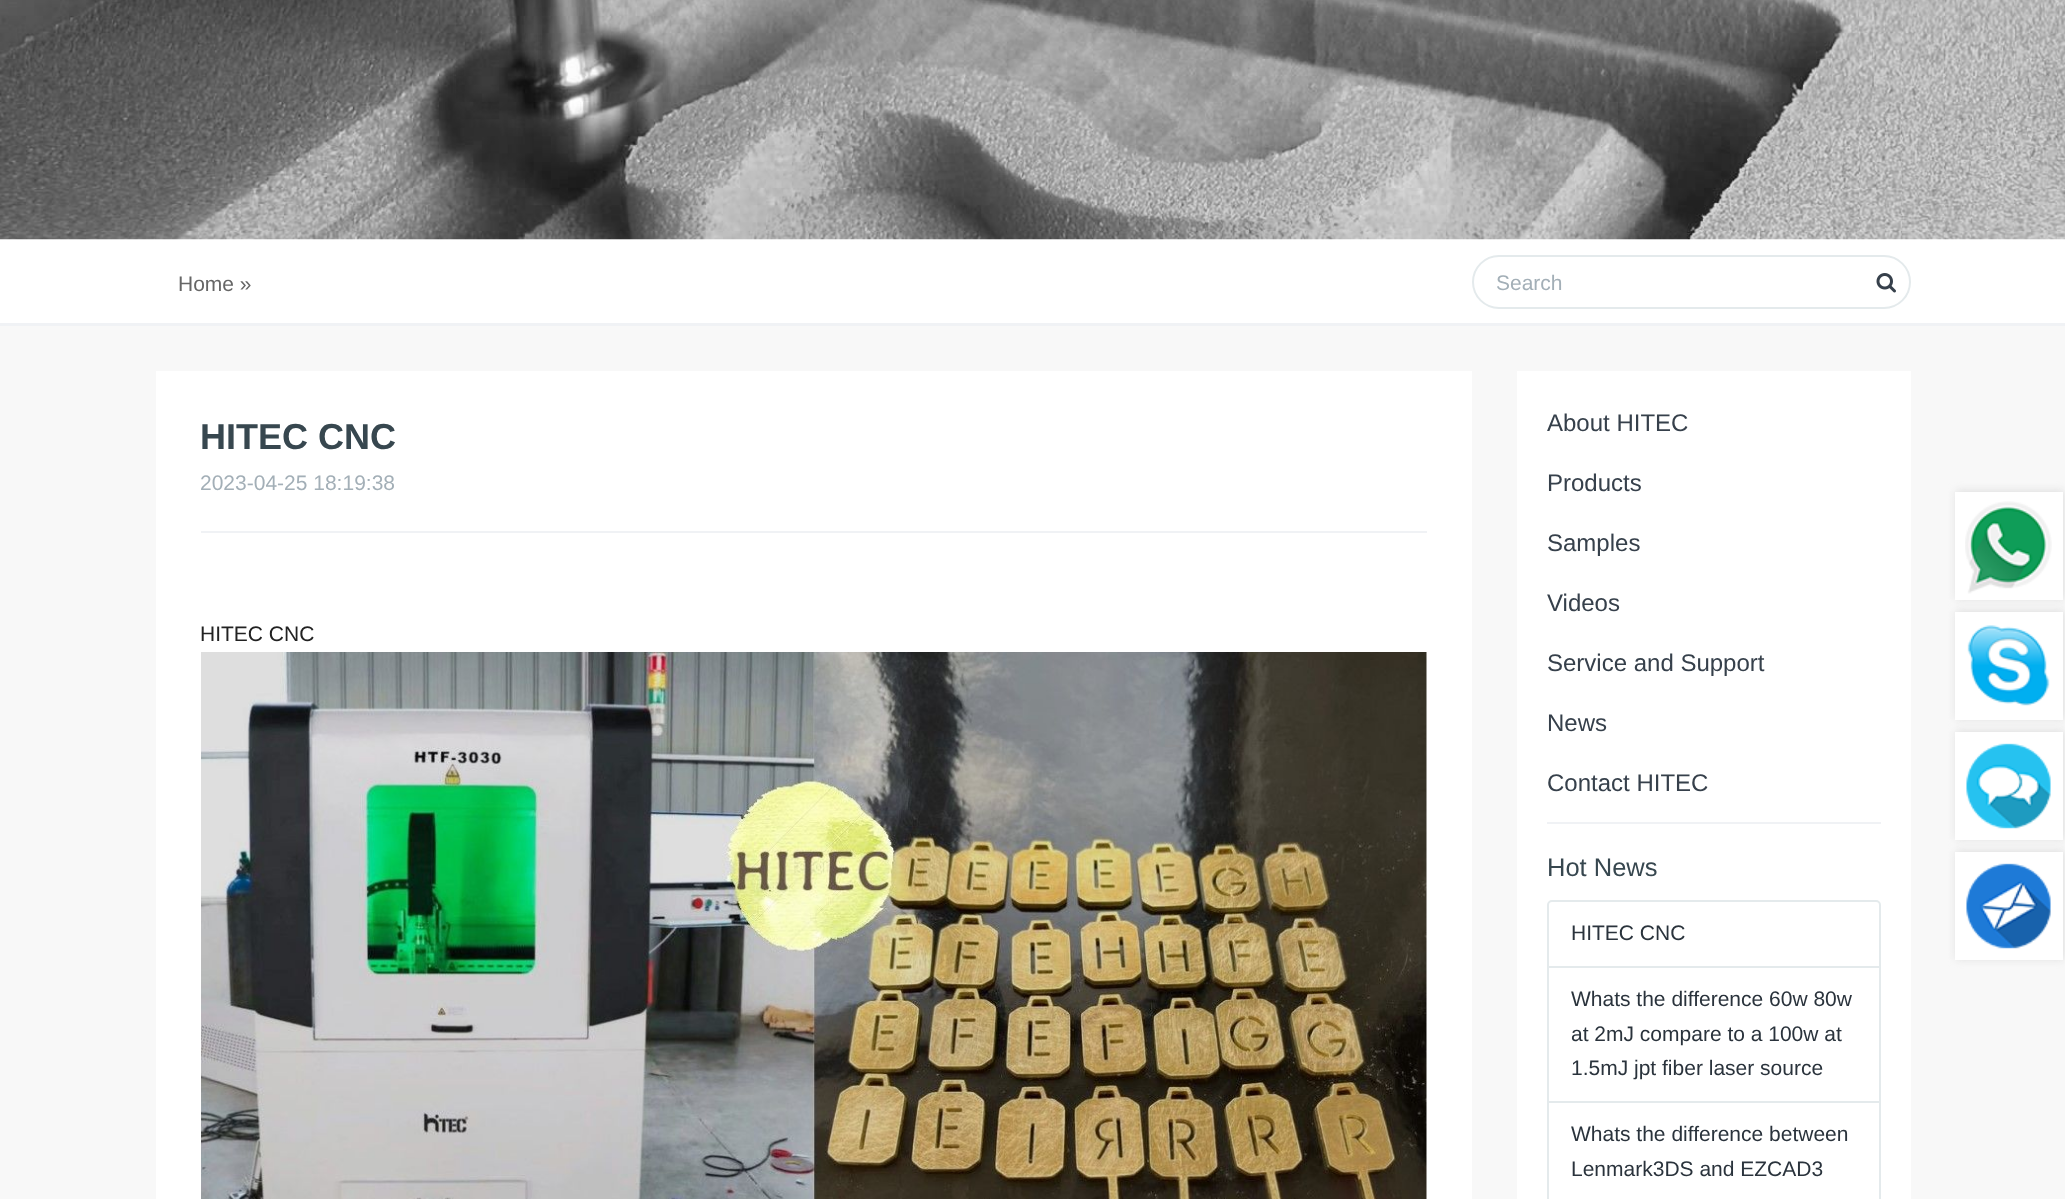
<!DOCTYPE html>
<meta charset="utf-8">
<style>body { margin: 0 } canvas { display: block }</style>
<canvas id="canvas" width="2065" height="1199"></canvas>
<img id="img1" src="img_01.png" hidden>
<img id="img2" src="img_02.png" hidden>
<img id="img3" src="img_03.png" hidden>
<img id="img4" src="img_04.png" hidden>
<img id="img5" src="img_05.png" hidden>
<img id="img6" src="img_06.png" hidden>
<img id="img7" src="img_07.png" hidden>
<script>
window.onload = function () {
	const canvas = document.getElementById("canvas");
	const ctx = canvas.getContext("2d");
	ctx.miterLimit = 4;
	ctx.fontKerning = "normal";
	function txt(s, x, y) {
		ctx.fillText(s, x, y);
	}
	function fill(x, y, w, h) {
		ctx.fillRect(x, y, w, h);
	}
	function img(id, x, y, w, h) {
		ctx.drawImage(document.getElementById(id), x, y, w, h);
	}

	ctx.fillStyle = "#FFFFFF";
	fill(0, 0, 2065, 1199);
	img("img1", 0, 0, 2065, 240);
	ctx.fillStyle = "#F0F2F5";
	fill(0, 323, 2065, 3);
	ctx.beginPath();
	ctx.roundRect(1473, 256, 437, 52, 26);
	ctx.strokeStyle = "#E4EAEC";
	ctx.lineWidth = 2;
	ctx.stroke();
	img("img2", 1876, 273, 20, 20);
	ctx.fillStyle = "#F8F8F8";
	fill(0, 326, 2065, 873);
	ctx.fillStyle = "#FFFFFF";
	fill(156, 371, 1316, 828);
	ctx.fillStyle = "#F0F2F5";
	fill(201, 531, 1226, 2);
	img("img3", 201, 652, 1226, 547);
	ctx.fillStyle = "#FFFFFF";
	fill(1517, 371, 394, 828);
	ctx.fillStyle = "#F0F2F5";
	fill(1547, 822, 334, 2);
	ctx.beginPath();
	ctx.roundRect(1548, 901, 332, 66, [4, 4, 0, 0]);
	ctx.stroke();
	ctx.strokeRect(1548, 967, 332, 135);
	ctx.strokeRect(1548, 1102, 332, 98);
	ctx.fillStyle = "#DDDDDD";
	ctx.filter = "blur(4px)";
	ctx.beginPath();
	ctx.rect(1956, 491, 108, 108);
	ctx.fill();
	ctx.filter = "none";
	ctx.fillStyle = "#FFFFFF";
	fill(1955, 492, 108, 108);
	img("img4", 1965, 501, 87, 93);
	ctx.fillStyle = "#DDDDDD";
	ctx.filter = "blur(4px)";
	ctx.beginPath();
	ctx.rect(1956, 611, 108, 108);
	ctx.fill();
	ctx.filter = "none";
	ctx.fillStyle = "#FFFFFF";
	fill(1955, 612, 108, 108);
	img("img5", 1967, 625, 83, 81);
	ctx.fillStyle = "#DDDDDD";
	ctx.filter = "blur(4px)";
	ctx.beginPath();
	ctx.rect(1956, 731, 108, 108);
	ctx.fill();
	ctx.filter = "none";
	ctx.fillStyle = "#FFFFFF";
	fill(1955, 732, 108, 108);
	img("img6", 1966, 743, 85, 86);
	ctx.fillStyle = "#DDDDDD";
	ctx.filter = "blur(4px)";
	ctx.beginPath();
	ctx.rect(1956, 851, 108, 108);
	ctx.fill();
	ctx.filter = "none";
	ctx.fillStyle = "#FFFFFF";
	fill(1955, 852, 108, 108);
	img("img7", 1966, 863, 85, 86);
	ctx.font = "21px Liberation Sans";
	ctx.fillStyle = "#666666";
	txt("Home »", 178, 291);
	ctx.fillStyle = "#A3AFB7";
	txt("Search", 1496, 290);
	ctx.font = "bold 36px Liberation Sans";
	ctx.fillStyle = "#37474F";
	txt("HITEC CNC", 200, 449);
	ctx.font = "21px Liberation Sans";
	ctx.fillStyle = "#A3AFB7";
	txt("2023-04-25 18:19:38", 200, 490);
	ctx.fillStyle = "#222222";
	txt("HITEC CNC", 200, 641);
	ctx.font = "24px Liberation Sans";
	ctx.fillStyle = "#36404B";
	txt("About HITEC", 1547, 431);
	txt("Products", 1547, 491);
	txt("Samples", 1547, 551);
	txt("Videos", 1547, 611);
	txt("Service and Support", 1547, 671);
	txt("News", 1547, 731);
	txt("Contact HITEC", 1547, 791);
	ctx.font = "25.5px Liberation Sans";
	ctx.fillStyle = "#37474F";
	txt("Hot News", 1547, 876);
	ctx.font = "21px Liberation Sans";
	ctx.fillStyle = "#2A333C";
	txt("HITEC CNC", 1571, 940);
	txt("Whats the difference 60w 80w", 1571, 1006);
	txt("at 2mJ compare to a 100w at", 1571, 1041);
	txt("1.5mJ jpt fiber laser source", 1571, 1075);
	txt("Whats the difference between", 1571, 1141);
	txt("Lenmark3DS and EZCAD3", 1571, 1176);
};
</script>
